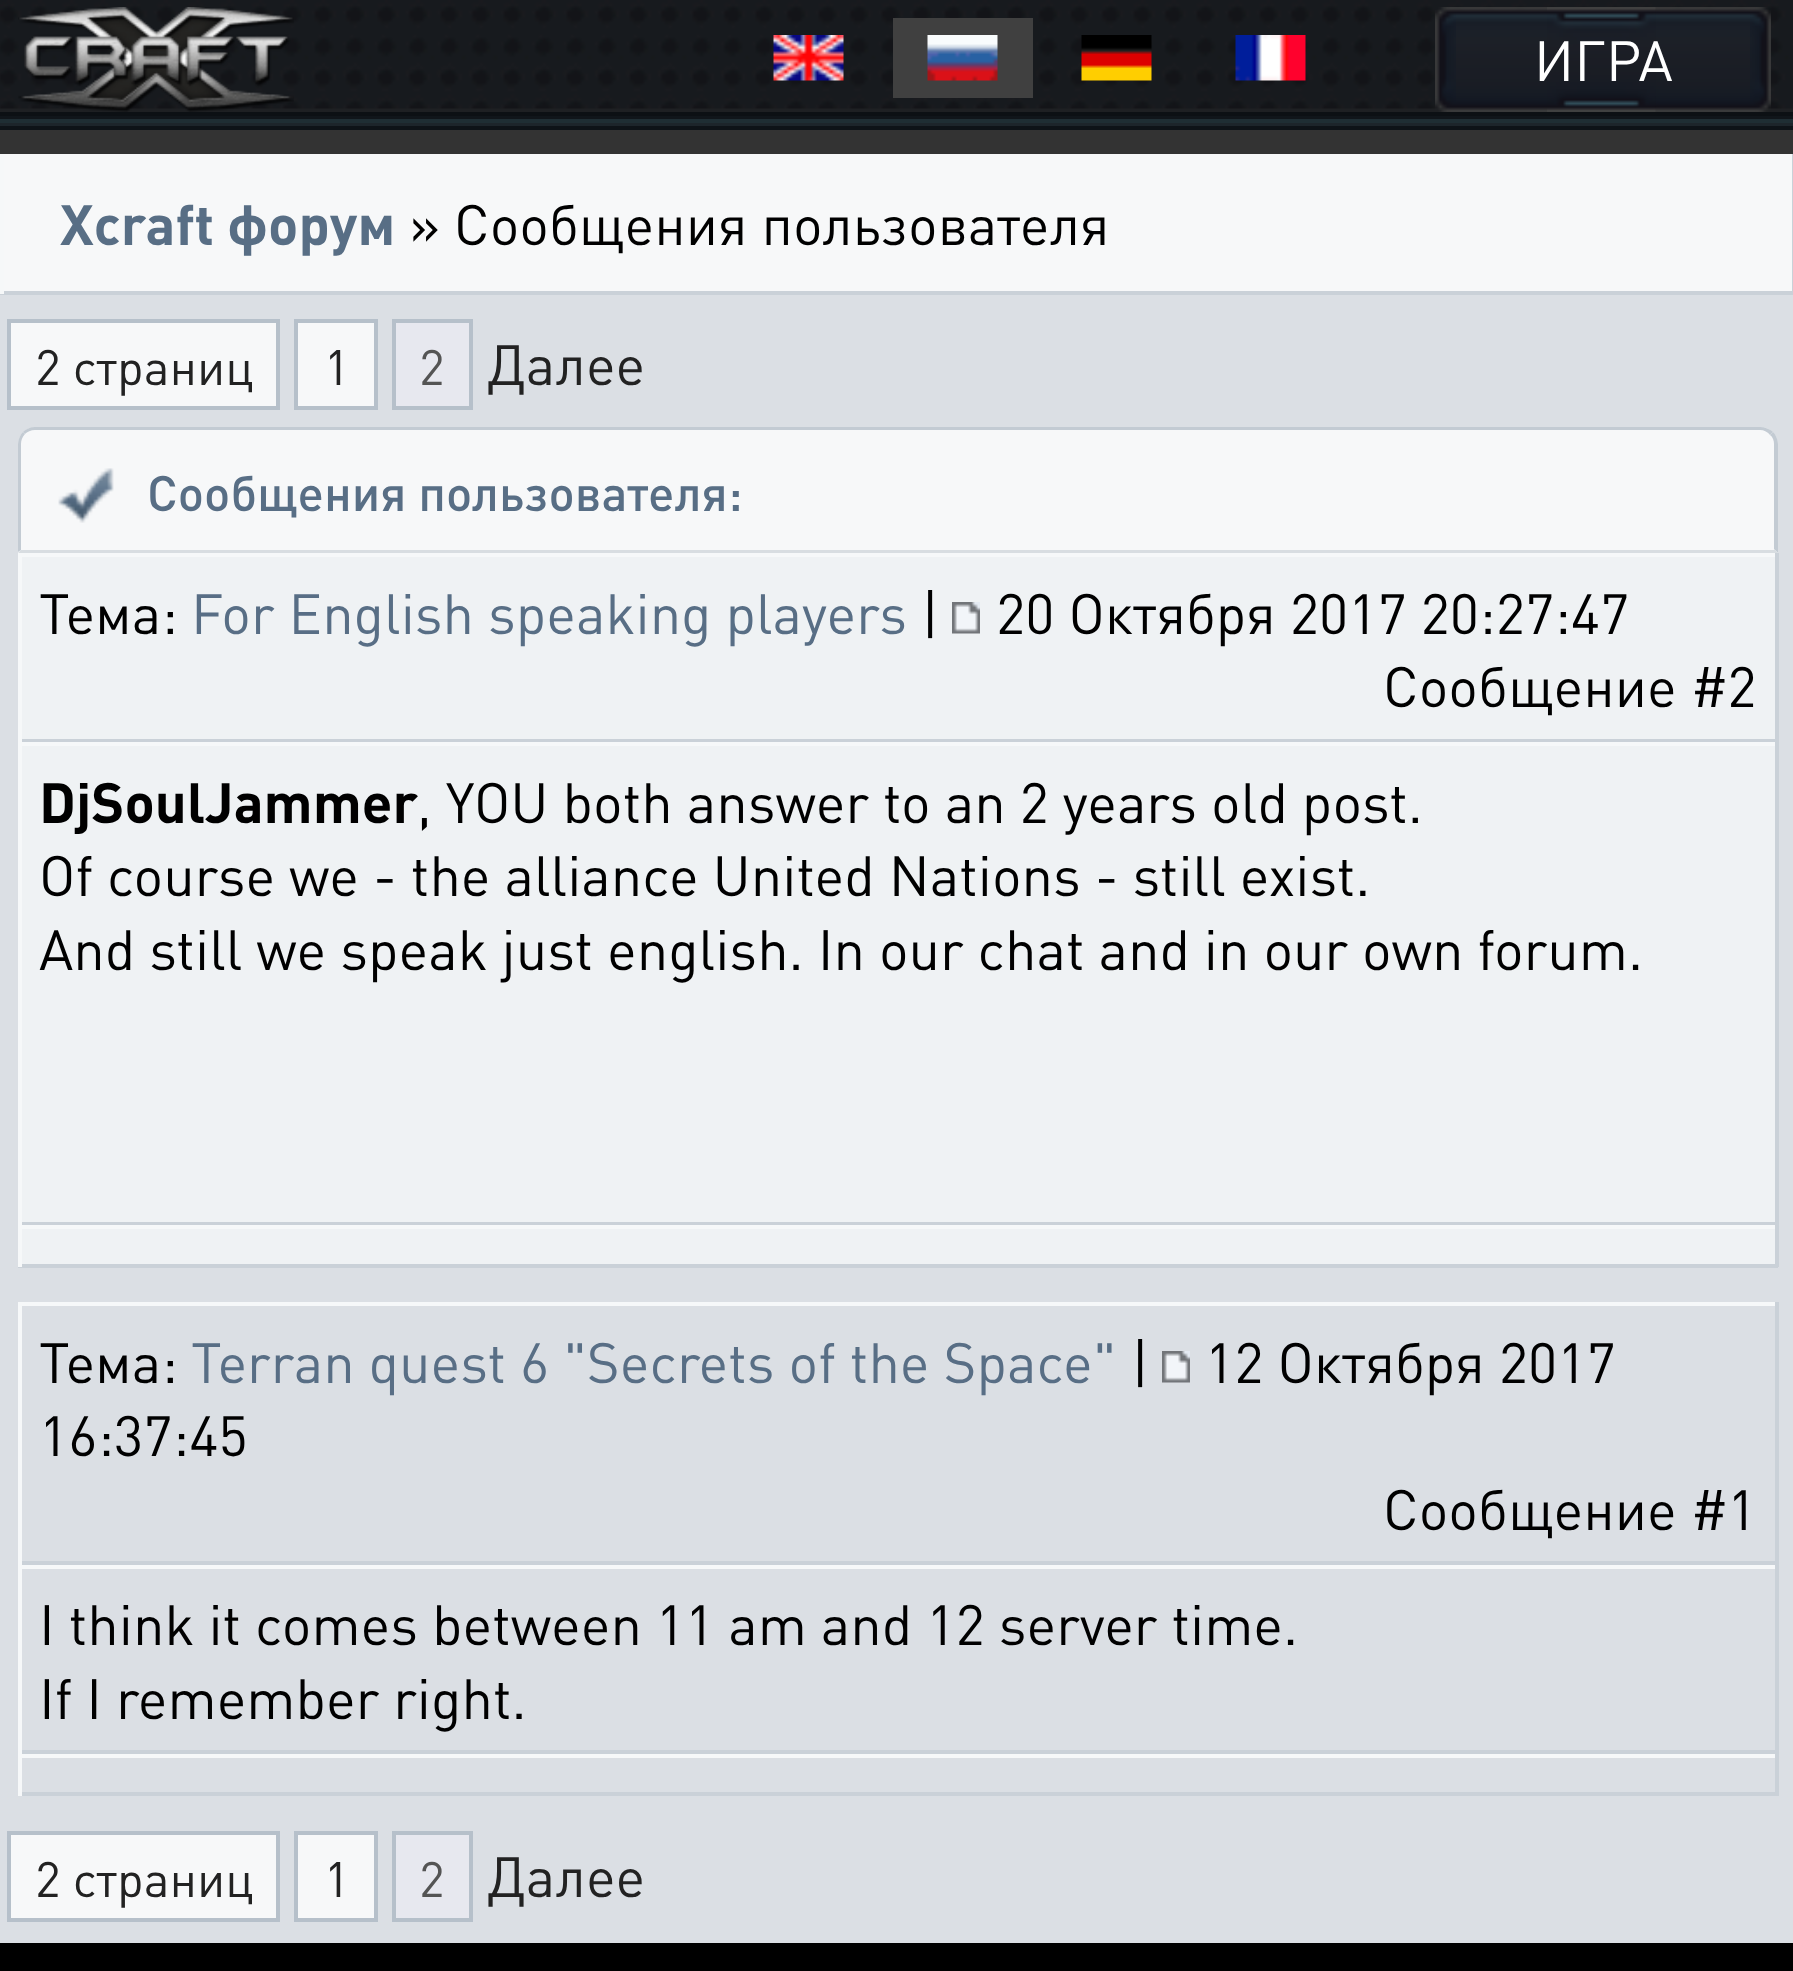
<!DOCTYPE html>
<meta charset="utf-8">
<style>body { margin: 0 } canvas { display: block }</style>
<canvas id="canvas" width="1793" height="1971"></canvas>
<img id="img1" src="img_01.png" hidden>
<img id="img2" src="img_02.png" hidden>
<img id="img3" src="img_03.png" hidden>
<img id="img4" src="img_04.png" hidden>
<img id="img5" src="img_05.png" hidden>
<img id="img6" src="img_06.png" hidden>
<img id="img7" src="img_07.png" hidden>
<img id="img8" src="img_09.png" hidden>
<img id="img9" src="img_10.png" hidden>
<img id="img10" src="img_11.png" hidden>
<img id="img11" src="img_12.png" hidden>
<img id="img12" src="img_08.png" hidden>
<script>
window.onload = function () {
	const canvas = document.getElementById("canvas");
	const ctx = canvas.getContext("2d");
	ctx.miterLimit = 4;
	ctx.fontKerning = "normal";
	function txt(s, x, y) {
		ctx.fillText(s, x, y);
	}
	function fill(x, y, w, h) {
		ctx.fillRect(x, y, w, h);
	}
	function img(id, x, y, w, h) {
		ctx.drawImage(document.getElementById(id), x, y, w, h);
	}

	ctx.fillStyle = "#333333";
	fill(0, 0, 1793, 1971);
	ctx.fillStyle = "#1E2023";
	fill(0, 108, 1793, 4);
	img("img1", 0, 0, 1793, 109);
	ctx.fillStyle = "#0C1014";
	fill(0, 112, 1793, 4);
	ctx.fillStyle = "#10151A";
	fill(0, 116, 1793, 3);
	ctx.fillStyle = "#1F2E34";
	fill(0, 119, 1793, 4);
	ctx.fillStyle = "#1D252B";
	fill(0, 123, 1793, 3);
	ctx.fillStyle = "#0E1318";
	fill(0, 126, 1793, 4);
	img("img2", 18, 7, 276, 105);
	img("img3", 773, 35, 71, 46);
	ctx.fillStyle = "#404040";
	fill(893, 18, 140, 80);
	img("img4", 927, 35, 71, 46);
	img("img5", 1081, 35, 71, 46);
	img("img6", 1235, 35, 71, 46);
	img("img7", 1456, 7, 294, 105);
	img("img8", 1547, 7, 109, 105);
	ctx.fillStyle = "#DBDFE4";
	fill(0, 295, 1793, 1648);
	ctx.fillStyle = "#F7F8F9";
	fill(4, 154, 1788, 137);
	ctx.fillStyle = "#CAD1D8";
	fill(1792, 154, 1, 140);
	fill(0, 291, 1793, 4);
	ctx.fillStyle = "#F6F8F9";
	fill(0, 154, 4, 140);
	ctx.fillStyle = "#F7F8F9";
	ctx.beginPath();
	ctx.rect(9, 321, 269, 87);
	ctx.fill();
	ctx.strokeStyle = "#B6C0CA";
	ctx.lineWidth = 4;
	ctx.stroke();
	ctx.beginPath();
	ctx.rect(296, 321, 80, 87);
	ctx.fill();
	ctx.stroke();
	ctx.fillStyle = "#E7E8EF";
	ctx.beginPath();
	ctx.rect(394, 321, 77, 87);
	ctx.fill();
	ctx.stroke();
	ctx.fillStyle = "#F7F8F9";
	ctx.beginPath();
	ctx.roundRect(18, 427, 1760, 126, [18, 18, 0, 0]);
	ctx.fill();
	ctx.fillStyle = "#C3CBD3";
	ctx.beginPath();
	ctx.moveTo(35, 427);
	ctx.bezierCurveTo(30, 427, 26, 429, 23, 432);
	ctx.lineTo(25, 434);
	ctx.bezierCurveTo(27, 432, 31, 430, 35, 430);
	ctx.lineTo(1760, 430);
	ctx.bezierCurveTo(1764, 430, 1768, 432, 1770, 435);
	ctx.lineTo(1773, 432);
	ctx.bezierCurveTo(1770, 429, 1765, 427, 1760, 427);
	ctx.closePath();
	ctx.fill();
	ctx.beginPath();
	ctx.moveTo(1778, 553);
	ctx.lineTo(1778, 444);
	ctx.bezierCurveTo(1778, 440, 1776, 435, 1773, 432);
	ctx.lineTo(1770, 435);
	ctx.bezierCurveTo(1773, 437, 1774, 441, 1774, 444);
	ctx.lineTo(1774, 549);
	ctx.closePath();
	ctx.fill();
	ctx.fillStyle = "#D8DDE1";
	ctx.beginPath();
	ctx.moveTo(1778, 553);
	ctx.lineTo(1774, 549);
	ctx.lineTo(1774, 550);
	ctx.lineTo(21, 550);
	ctx.lineTo(18, 553);
	ctx.closePath();
	ctx.fill();
	ctx.fillStyle = "#C3CBD3";
	ctx.beginPath();
	ctx.moveTo(23, 432);
	ctx.bezierCurveTo(20, 435, 18, 440, 18, 444);
	ctx.lineTo(18, 552);
	ctx.lineTo(21, 550);
	ctx.lineTo(21, 444);
	ctx.bezierCurveTo(21, 441, 22, 437, 25, 434);
	ctx.closePath();
	ctx.fill();
	img("img9", 58, 468, 56, 55);
	ctx.fillStyle = "#EFF2F4";
	fill(22, 557, 1753, 182);
	ctx.fillStyle = "#F6F8F9";
	fill(18, 553, 1760, 4);
	ctx.fillStyle = "#CAD1D8";
	fill(1775, 553, 4, 189);
	fill(18, 739, 1760, 3);
	ctx.fillStyle = "#F6F8F9";
	fill(18, 553, 4, 189);
	img("img10", 952, 602, 28, 32);
	ctx.fillStyle = "#EFF2F4";
	fill(22, 746, 1753, 476);
	ctx.fillStyle = "#F6F8F9";
	fill(18, 742, 1760, 4);
	ctx.fillStyle = "#CAD1D8";
	fill(1775, 742, 4, 483);
	fill(18, 1222, 1760, 3);
	ctx.fillStyle = "#F6F8F9";
	fill(18, 742, 4, 483);
	ctx.fillStyle = "#EFF2F4";
	fill(22, 1229, 1753, 35);
	ctx.fillStyle = "#F6F8F9";
	fill(18, 1225, 1760, 4);
	ctx.fillStyle = "#CAD1D8";
	fill(1775, 1225, 4, 42);
	fill(18, 1264, 1760, 4);
	ctx.fillStyle = "#F6F8F9";
	fill(18, 1225, 4, 42);
	fill(18, 1302, 1760, 4);
	ctx.fillStyle = "#CAD1D8";
	fill(1775, 1302, 4, 263);
	fill(18, 1561, 1760, 4);
	ctx.fillStyle = "#F6F8F9";
	fill(18, 1302, 4, 263);
	img("img11", 1162, 1351, 28, 32);
	fill(18, 1565, 1760, 4);
	ctx.fillStyle = "#CAD1D8";
	fill(1775, 1565, 4, 189);
	fill(18, 1750, 1760, 4);
	ctx.fillStyle = "#F6F8F9";
	fill(18, 1565, 4, 189);
	fill(18, 1754, 1760, 4);
	ctx.fillStyle = "#CAD1D8";
	fill(1775, 1754, 4, 42);
	fill(18, 1792, 1760, 4);
	ctx.fillStyle = "#F6F8F9";
	fill(18, 1754, 4, 42);
	ctx.fillStyle = "#F7F8F9";
	ctx.beginPath();
	ctx.rect(9, 1833, 269, 87);
	ctx.fill();
	ctx.stroke();
	ctx.beginPath();
	ctx.rect(296, 1833, 80, 87);
	ctx.fill();
	ctx.stroke();
	ctx.fillStyle = "#E7E8EF";
	ctx.beginPath();
	ctx.rect(394, 1833, 77, 87);
	ctx.fill();
	ctx.stroke();
	ctx.fillStyle = "#000000";
	fill(0, 1943, 1793, 28);
	ctx.font = "56px DIN";
	ctx.fillStyle = "#FFFFFF";
	txt("ИГРА", 1534, 81);
	img("img12", 1435, 7, 336, 105);
	ctx.font = "bold 56px DIN";
	ctx.fillStyle = "#586E85";
	txt("Xcraft форум", 60, 245);
	ctx.font = "56px DIN";
	ctx.fillStyle = "#000000";
	txt("» Сообщения пользователя", 409, 245);
	ctx.font = "49px DIN";
	ctx.fillStyle = "#222222";
	txt("2 страниц", 35, 385);
	txt("1", 324, 385);
	ctx.fillStyle = "#545454";
	txt("2", 419, 385);
	ctx.font = "56px DIN";
	ctx.fillStyle = "#222222";
	txt("Далее", 487, 385);
	ctx.font = "500 49px DIN";
	ctx.fillStyle = "#586E85";
	txt("Сообщения пользователя:", 147, 511);
	ctx.font = "56px DIN";
	ctx.fillStyle = "#000000";
	txt("Тема:", 39, 634);
	ctx.fillStyle = "#586E85";
	txt("For English speaking players", 191, 634);
	ctx.fillStyle = "#000000";
	txt("|", 921, 634);
	txt("20 Октября 2017 20:27:47", 996, 634);
	txt("Сообщение #2", 1383, 707);
	ctx.font = "bold 56px DIN";
	txt("DjSoulJammer", 39, 823);
	ctx.font = "56px DIN";
	txt(", YOU both answer to an 2 years old post.", 417, 823);
	txt("Of course we - the alliance United Nations - still exist.", 39, 896);
	txt("And still we speak just english. In our chat and in our own forum.", 39, 970);
	txt("Тема:", 39, 1383);
	ctx.fillStyle = "#586E85";
	txt("Terran quest 6 \"Secrets of the Space\"", 191, 1383);
	ctx.fillStyle = "#000000";
	txt("|", 1131, 1383);
	txt("12 Октября 2017", 1205, 1383);
	txt("16:37:45", 39, 1456);
	txt("Сообщение #1", 1383, 1530);
	txt("I think it comes between 11 am and 12 server time.", 39, 1645);
	txt("If I remember right.", 39, 1719);
	ctx.font = "49px DIN";
	ctx.fillStyle = "#222222";
	txt("2 страниц", 35, 1897);
	txt("1", 324, 1897);
	ctx.fillStyle = "#545454";
	txt("2", 419, 1897);
	ctx.font = "56px DIN";
	ctx.fillStyle = "#222222";
	txt("Далее", 487, 1897);
};
</script>
